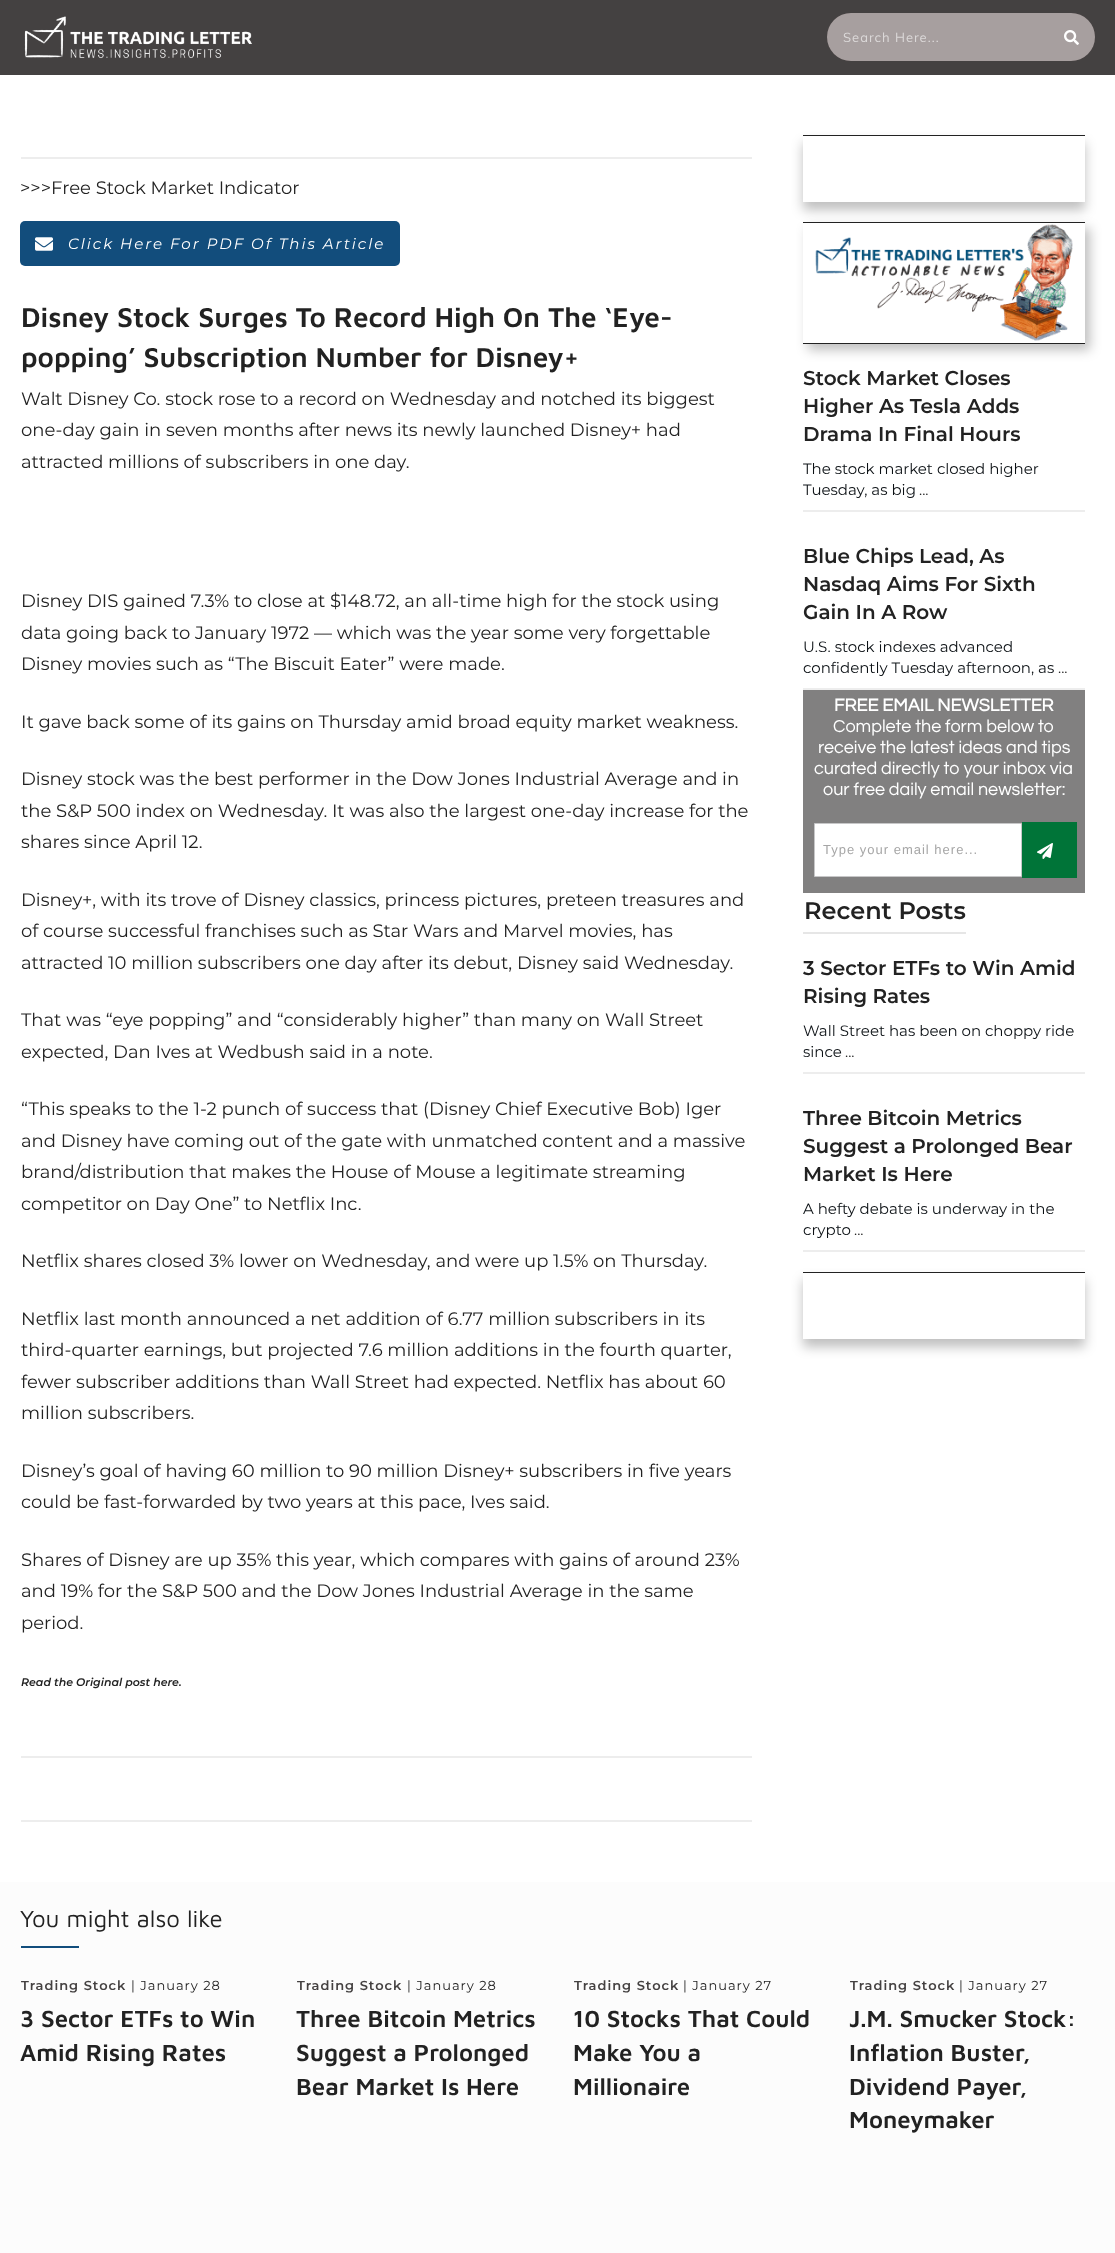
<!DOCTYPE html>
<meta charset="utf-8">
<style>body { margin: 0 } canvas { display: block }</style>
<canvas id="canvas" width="1115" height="2253"></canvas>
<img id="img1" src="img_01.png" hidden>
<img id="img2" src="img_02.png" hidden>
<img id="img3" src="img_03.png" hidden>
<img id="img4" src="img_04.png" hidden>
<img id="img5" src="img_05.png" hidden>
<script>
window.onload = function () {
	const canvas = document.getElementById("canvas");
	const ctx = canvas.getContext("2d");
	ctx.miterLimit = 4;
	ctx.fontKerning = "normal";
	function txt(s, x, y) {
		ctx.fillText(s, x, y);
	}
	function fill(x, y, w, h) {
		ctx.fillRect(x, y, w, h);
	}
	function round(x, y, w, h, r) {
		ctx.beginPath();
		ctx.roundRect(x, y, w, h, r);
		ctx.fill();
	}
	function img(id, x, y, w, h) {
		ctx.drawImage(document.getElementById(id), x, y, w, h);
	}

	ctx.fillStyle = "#FFFFFF";
	fill(0, 0, 1115, 2253);
	ctx.fillStyle = "#444141";
	fill(0, 0, 1115, 75);
	img("img1", 24, 16, 228, 43);
	ctx.fillStyle = "#4F3E3E";
	round(827, 13, 268, 48, 24);
	ctx.fillStyle = "rgba(255, 255, 255, 0.5)";
	round(827, 13, 268, 48, 24);
	img("img2", 1064, 30, 15, 15);
	ctx.fillStyle = "#EDEDED";
	fill(21, 157, 731, 2);
	ctx.fillStyle = "#124D7C";
	round(20, 221, 380, 45, 5);
	img("img3", 35, 237, 18, 14);
	ctx.fillStyle = "#EDEDED";
	fill(21, 1756, 731, 2);
	fill(21, 1820, 731, 2);
	ctx.save();
	ctx.beginPath();
	ctx.moveTo(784, 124);
	ctx.lineTo(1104, 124);
	ctx.lineTo(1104, 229);
	ctx.lineTo(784, 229);
	ctx.closePath();
	ctx.moveTo(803, 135);
	ctx.lineTo(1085, 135);
	ctx.lineTo(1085, 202);
	ctx.lineTo(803, 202);
	ctx.closePath();
	ctx.clip("evenodd");
	ctx.fillStyle = "rgba(0, 0, 0, 0.25)";
	ctx.filter = "blur(6px)";
	ctx.beginPath();
	ctx.rect(803, 143, 282, 67);
	ctx.fill();
	ctx.filter = "none";
	ctx.restore();
	ctx.fillStyle = "#222222";
	fill(803, 135, 282, 1);
	fill(803, 222, 282, 1);
	fill(803, 343, 282, 1);
	ctx.save();
	ctx.beginPath();
	ctx.moveTo(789, 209);
	ctx.lineTo(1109, 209);
	ctx.lineTo(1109, 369);
	ctx.lineTo(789, 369);
	ctx.closePath();
	ctx.moveTo(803, 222);
	ctx.lineTo(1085, 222);
	ctx.lineTo(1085, 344);
	ctx.lineTo(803, 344);
	ctx.closePath();
	ctx.clip("evenodd");
	ctx.fillStyle = "rgba(0, 0, 0, 0.25)";
	ctx.filter = "blur(6px)";
	ctx.beginPath();
	ctx.rect(808, 228, 282, 122);
	ctx.fill();
	ctx.filter = "none";
	ctx.restore();
	img("img4", 815, 224, 258, 117);
	ctx.fillStyle = "#EDEDED";
	fill(803, 510, 282, 2);
	fill(803, 688, 282, 2);
	ctx.fillStyle = "#818080";
	fill(803, 690, 282, 203);
	ctx.fillStyle = "#FFFFFF";
	ctx.beginPath();
	ctx.rect(814.5, 823.5, 207, 53);
	ctx.fill();
	ctx.strokeStyle = "#C7C7C8";
	ctx.stroke();
	ctx.fillStyle = "#007438";
	fill(1022, 822, 55, 56);
	img("img5", 1037, 843, 16, 16);
	ctx.fillStyle = "#E6E6E6";
	fill(803, 932, 163, 2);
	ctx.fillStyle = "#EDEDED";
	fill(803, 1072, 282, 2);
	fill(803, 1250, 282, 2);
	ctx.save();
	ctx.beginPath();
	ctx.moveTo(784, 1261);
	ctx.lineTo(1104, 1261);
	ctx.lineTo(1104, 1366);
	ctx.lineTo(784, 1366);
	ctx.closePath();
	ctx.moveTo(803, 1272);
	ctx.lineTo(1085, 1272);
	ctx.lineTo(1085, 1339);
	ctx.lineTo(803, 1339);
	ctx.closePath();
	ctx.clip("evenodd");
	ctx.fillStyle = "rgba(0, 0, 0, 0.25)";
	ctx.filter = "blur(6px)";
	ctx.beginPath();
	ctx.rect(803, 1280, 282, 67);
	ctx.fill();
	ctx.filter = "none";
	ctx.restore();
	ctx.fillStyle = "#222222";
	fill(803, 1272, 282, 1);
	ctx.fillStyle = "#FCFCFC";
	fill(0, 1882, 1115, 371);
	ctx.fillStyle = "#124D7C";
	fill(21, 1946, 58, 2);
	ctx.letterSpacing = "1px";
	ctx.font = "13px Muli";
	ctx.fillStyle = "#DCD9D9";
	txt("Search Here...", 843, 42);
	ctx.letterSpacing = "0px";
	ctx.font = "18px Montserrat";
	ctx.fillStyle = "#222222";
	txt(">>>Free Stock Market Indicator", 20, 194);
	ctx.letterSpacing = "2px";
	ctx.font = "italic 15px Montserrat";
	ctx.fillStyle = "#FFFFFF";
	txt("Click Here For PDF Of This Article", 68, 249);
	ctx.letterSpacing = "0px";
	ctx.font = "600 28px Maven Pro";
	ctx.fillStyle = "#222222";
	txt("Disney Stock Surges To Record High On The ‘Eye-", 21, 327);
	txt("popping’ Subscription Number for Disney+", 21, 367);
	ctx.font = "18px Montserrat";
	txt("Walt Disney Co. stock rose to a record on Wednesday and notched its biggest", 21, 405);
	txt("one-day gain in seven months after news its newly launched Disney+ had", 21, 436);
	txt("attracted millions of subscribers in one day.", 21, 468);
	txt("Disney DIS gained 7.3% to close at $148.72, an all-time high for the stock using", 21, 607);
	txt("data going back to January 1972 — which was the year some very forgettable", 21, 639);
	txt("Disney movies such as “The Biscuit Eater” were made.", 21, 670);
	txt("It gave back some of its gains on Thursday amid broad equity market weakness.", 21, 728);
	txt("Disney stock was the best performer in the Dow Jones Industrial Average and in", 21, 785);
	txt("the S&P 500 index on Wednesday. It was also the largest one-day increase for the", 21, 817);
	txt("shares since April 12.", 21, 848);
	txt("Disney+, with its trove of Disney classics, princess pictures, preteen treasures and", 21, 906);
	txt("of course successful franchises such as Star Wars and Marvel movies, has", 21, 937);
	txt("attracted 10 million subscribers one day after its debut, Disney said Wednesday.", 21, 969);
	txt("That was “eye popping” and “considerably higher” than many on Wall Street", 21, 1026);
	txt("expected, Dan Ives at Wedbush said in a note.", 21, 1058);
	txt("“This speaks to the 1-2 punch of success that (Disney Chief Executive Bob) Iger", 21, 1115);
	txt("and Disney have coming out of the gate with unmatched content and a massive", 21, 1147);
	txt("brand/distribution that makes the House of Mouse a legitimate streaming", 21, 1178);
	txt("competitor on Day One” to Netflix Inc.", 21, 1210);
	txt("Netflix shares closed 3% lower on Wednesday, and were up 1.5% on Thursday.", 21, 1267);
	txt("Netflix last month announced a net addition of 6.77 million subscribers in its", 21, 1325);
	txt("third-quarter earnings, but projected 7.6 million additions in the fourth quarter,", 21, 1356);
	txt("fewer subscriber additions than Wall Street had expected. Netflix has about 60", 21, 1388);
	txt("million subscribers.", 21, 1419);
	txt("Disney’s goal of having 60 million to 90 million Disney+ subscribers in five years", 21, 1477);
	txt("could be fast-forwarded by two years at this pace, Ives said.", 21, 1508);
	txt("Shares of Disney are up 35% this year, which compares with gains of around 23%", 21, 1566);
	txt("and 19% for the S&P 500 and the Dow Jones Industrial Average in the same", 21, 1597);
	txt("period.", 21, 1629);
	ctx.font = "italic 600 11px Montserrat";
	txt("Read the Original post here.", 21, 1686);
	ctx.font = "600 20px Montserrat";
	txt("Stock Market Closes", 803, 385);
	txt("Higher As Tesla Adds", 803, 413);
	txt("Drama In Final Hours", 803, 441);
	ctx.font = "15px Montserrat";
	ctx.fillStyle = "#0C1115";
	txt("The stock market closed higher", 803, 474);
	txt("Tuesday, as big", 803, 495);
	ctx.fillStyle = "#222222";
	txt("...", 919, 495);
	ctx.font = "600 20px Montserrat";
	txt("Blue Chips Lead, As", 803, 563);
	txt("Nasdaq Aims For Sixth", 803, 591);
	txt("Gain In A Row", 803, 619);
	ctx.font = "15px Montserrat";
	ctx.fillStyle = "#0C1115";
	txt("U.S. stock indexes advanced", 803, 652);
	txt("confidently Tuesday afternoon, as", 803, 673);
	ctx.fillStyle = "#222222";
	txt("...", 1058, 673);
	ctx.font = "bold 18px Questrial";
	ctx.fillStyle = "#FFFFFF";
	txt("FREE EMAIL NEWSLETTER", 834, 711);
	ctx.font = "18px Questrial";
	txt("Complete the form below to", 833, 732);
	txt("receive the latest ideas and tips", 818, 753);
	txt("curated directly to your inbox via", 814, 774);
	txt("our free daily email newsletter:", 823, 795);
	ctx.letterSpacing = "1px";
	ctx.font = "13px Liberation Sans";
	ctx.fillStyle = "#A6A6A6";
	txt("Type your email here...", 823, 854);
	ctx.letterSpacing = "0px";
	ctx.font = "600 24px Montserrat";
	ctx.fillStyle = "#222222";
	txt("Recent Posts", 804, 919);
	ctx.font = "600 20px Montserrat";
	txt("3 Sector ETFs to Win Amid", 803, 975);
	txt("Rising Rates", 803, 1003);
	ctx.font = "15px Montserrat";
	ctx.fillStyle = "#0C1115";
	txt("Wall Street has been on choppy ride", 803, 1036);
	txt("since", 803, 1057);
	ctx.fillStyle = "#222222";
	txt("...", 845, 1057);
	ctx.font = "600 20px Montserrat";
	txt("Three Bitcoin Metrics", 803, 1125);
	txt("Suggest a Prolonged Bear", 803, 1153);
	txt("Market Is Here", 803, 1181);
	ctx.font = "15px Montserrat";
	ctx.fillStyle = "#0C1115";
	txt("A hefty debate is underway in the", 803, 1214);
	txt("crypto", 803, 1235);
	ctx.fillStyle = "#222222";
	txt("...", 854, 1235);
	ctx.font = "24px Maven Pro";
	txt("You might also like", 20, 1927);
	ctx.letterSpacing = "1px";
	ctx.font = "600 13px Montserrat";
	ctx.fillStyle = "#444141";
	txt("Trading Stock", 21, 1990);
	ctx.font = "13px Montserrat";
	ctx.fillStyle = "#222222";
	txt("| January 28", 131, 1990);
	ctx.letterSpacing = "0px";
	ctx.font = "600 24px Maven Pro";
	txt("3 Sector ETFs to Win", 20, 2027);
	txt("Amid Rising Rates", 20, 2061);
	ctx.letterSpacing = "1px";
	ctx.font = "600 13px Montserrat";
	ctx.fillStyle = "#444141";
	txt("Trading Stock", 297, 1990);
	ctx.font = "13px Montserrat";
	ctx.fillStyle = "#222222";
	txt("| January 28", 407, 1990);
	ctx.letterSpacing = "0px";
	ctx.font = "600 24px Maven Pro";
	txt("Three Bitcoin Metrics", 296, 2027);
	txt("Suggest a Prolonged", 296, 2061);
	txt("Bear Market Is Here", 296, 2095);
	ctx.letterSpacing = "1px";
	ctx.font = "600 13px Montserrat";
	ctx.fillStyle = "#444141";
	txt("Trading Stock", 574, 1990);
	ctx.font = "13px Montserrat";
	ctx.fillStyle = "#222222";
	txt("| January 27", 683, 1990);
	ctx.letterSpacing = "0px";
	ctx.font = "600 24px Maven Pro";
	txt("10 Stocks That Could", 573, 2027);
	txt("Make You a", 573, 2061);
	txt("Millionaire", 573, 2095);
	ctx.letterSpacing = "1px";
	ctx.font = "600 13px Montserrat";
	ctx.fillStyle = "#444141";
	txt("Trading Stock", 850, 1990);
	ctx.font = "13px Montserrat";
	ctx.fillStyle = "#222222";
	txt("| January 27", 959, 1990);
	ctx.letterSpacing = "0px";
	ctx.font = "600 24px Maven Pro";
	txt("J.M. Smucker Stock:", 849, 2027);
	txt("Inflation Buster,", 849, 2061);
	txt("Dividend Payer,", 849, 2095);
	txt("Moneymaker", 849, 2128);
};
</script>
